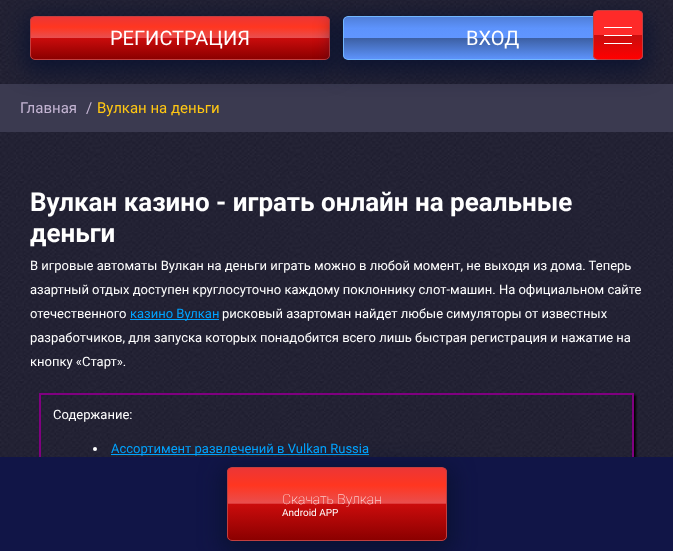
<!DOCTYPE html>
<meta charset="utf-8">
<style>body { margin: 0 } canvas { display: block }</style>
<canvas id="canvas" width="673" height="551"></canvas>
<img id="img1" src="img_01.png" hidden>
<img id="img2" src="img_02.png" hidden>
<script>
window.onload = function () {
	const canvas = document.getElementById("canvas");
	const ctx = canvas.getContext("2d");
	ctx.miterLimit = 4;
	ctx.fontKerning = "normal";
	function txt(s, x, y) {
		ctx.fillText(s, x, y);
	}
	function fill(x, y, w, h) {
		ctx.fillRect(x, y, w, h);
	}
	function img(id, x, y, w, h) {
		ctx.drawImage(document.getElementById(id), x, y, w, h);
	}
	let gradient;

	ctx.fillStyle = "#3B3A50";
	fill(0, 0, 673, 551);
	img("img1", 0, 0, 673, 84);
	ctx.fillStyle = "rgba(9, 17, 48, 0.82)";
	ctx.filter = "blur(10.5px)";
	ctx.beginPath();
	ctx.roundRect(24, 16, 312, 56, 11);
	ctx.fill();
	ctx.filter = "none";
	ctx.save();
	ctx.beginPath();
	ctx.roundRect(30, 16, 300, 44, 5);
	ctx.clip();
	gradient = ctx.createLinearGradient(180, 59, 180, 17);
	gradient.addColorStop(0, "#8B0000");
	gradient.addColorStop(0.5, "#CB0C0C");
	gradient.addColorStop(0.51, "#E94E4E");
	gradient.addColorStop(0.76, "#FF3620");
	gradient.addColorStop(1, "#EC3636");
	ctx.fillStyle = gradient;
	fill(30, 17, 300, 42);
	ctx.restore();
	ctx.beginPath();
	ctx.roundRect(30.5, 16.5, 299, 43, 4.5);
	ctx.strokeStyle = "#C23F3F";
	ctx.stroke();
	ctx.filter = "blur(10.5px)";
	ctx.beginPath();
	ctx.roundRect(337, 16, 312, 56, 11);
	ctx.fill();
	ctx.filter = "none";
	ctx.save();
	ctx.beginPath();
	ctx.roundRect(343, 16, 300, 44, 5);
	ctx.clip();
	gradient = ctx.createLinearGradient(493, 59, 493, 17);
	gradient.addColorStop(0, "#5D93FB");
	gradient.addColorStop(0.5, "#3C5FA3");
	gradient.addColorStop(0.5, "#6096FF");
	gradient.addColorStop(0.73, "#5D93FC");
	gradient.addColorStop(1, "#507FD9");
	ctx.fillStyle = gradient;
	fill(343, 17, 300, 42);
	ctx.restore();
	ctx.beginPath();
	ctx.roundRect(343.5, 16.5, 299, 43, 4.5);
	ctx.strokeStyle = "#72B7FF";
	ctx.stroke();
	img("img2", 0, 132, 673, 325);
	ctx.save();
	ctx.beginPath();
	ctx.rect(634, 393, 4, 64);
	ctx.clip();
	ctx.fillStyle = "#000000";
	ctx.filter = "blur(1px)";
	ctx.beginPath();
	ctx.rect(41, 395, 595, 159);
	ctx.fill();
	ctx.filter = "none";
	ctx.restore();
	ctx.strokeStyle = "#800080";
	ctx.lineWidth = 2;
	ctx.strokeRect(40, 394, 593, 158);
	ctx.fillStyle = "#111547";
	fill(0, 457, 673, 94);
	ctx.fillStyle = "#00A3FF";
	fill(111, 454, 258, 1);
	ctx.fillStyle = "rgba(9, 17, 48, 0.82)";
	ctx.filter = "blur(10.5px)";
	ctx.beginPath();
	ctx.roundRect(221, 467, 232, 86, 11);
	ctx.fill();
	ctx.filter = "none";
	ctx.save();
	ctx.beginPath();
	ctx.roundRect(227, 467, 220, 74, 5);
	ctx.clip();
	gradient = ctx.createLinearGradient(337, 540, 337, 468);
	gradient.addColorStop(0, "#8B0000");
	gradient.addColorStop(0.5, "#CB0C0C");
	gradient.addColorStop(0.51, "#E94E4E");
	gradient.addColorStop(0.76, "#FF3620");
	gradient.addColorStop(1, "#EC3636");
	ctx.fillStyle = gradient;
	fill(227, 468, 220, 72);
	ctx.restore();
	ctx.beginPath();
	ctx.roundRect(227.5, 467.5, 219, 73, 4.5);
	ctx.strokeStyle = "#C23F3F";
	ctx.lineWidth = 1;
	ctx.stroke();
	ctx.save();
	ctx.beginPath();
	ctx.roundRect(593, 10, 50, 50, 5);
	ctx.clip();
	gradient = ctx.createLinearGradient(618, 59, 618, 11);
	gradient.addColorStop(0, "#FF0000");
	gradient.addColorStop(0.5, "#C80E0E");
	gradient.addColorStop(0.5, "#FE2A29");
	ctx.fillStyle = gradient;
	fill(593, 11, 50, 48);
	ctx.restore();
	ctx.beginPath();
	ctx.roundRect(593.5, 10.5, 49, 49, 4.5);
	ctx.stroke();
	ctx.fillStyle = "#FFFFFF";
	fill(604, 27, 28, 1);
	fill(604, 35, 28, 1);
	fill(604, 43, 28, 1);
	ctx.fillStyle = "#00A3FF";
	fill(130, 319, 89, 1);
	ctx.fillStyle = "#FFFFFF";
	ctx.beginPath();
	ctx.arc(95, 449, 2, 0, Math.PI * 2);
	ctx.fill();
	ctx.font = "20px Roboto";
	txt("РЕГИСТРАЦИЯ", 110, 45);
	txt("ВХОД", 466, 45);
	ctx.font = "100 14px Roboto";
	txt("Скачать Вулкан", 282, 504);
	ctx.font = "10px Roboto";
	txt("Android APP", 282, 516);
	ctx.font = "15px Roboto";
	ctx.fillStyle = "#C3B4D2";
	txt("Главная", 20, 113);
	txt("/", 86, 113);
	ctx.fillStyle = "#FFC713";
	txt("Вулкан на деньги", 97, 113);
	ctx.font = "bold 26px Roboto";
	ctx.fillStyle = "#FFFFFF";
	txt("Вулкан казино - играть онлайн на реальные", 30, 211);
	txt("деньги", 30, 242);
	ctx.font = "13px Roboto";
	txt("В игровые автоматы Вулкан на деньги играть можно в любой момент, не выходя из дома. Теперь", 30, 270);
	txt("азартный отдых доступен круглосуточно каждому поклоннику слот-машин. На официальном сайте", 30, 294);
	txt("отечественного", 30, 318);
	ctx.fillStyle = "#00A3FF";
	txt("казино Вулкан", 130, 318);
	ctx.fillStyle = "#FFFFFF";
	txt("рисковый азартоман найдет любые симуляторы от известных", 222, 318);
	txt("разработчиков, для запуска которых понадобится всего лишь быстрая регистрация и нажатие на", 30, 342);
	txt("кнопку «Старт».", 30, 366);
	txt("Содержание:", 53, 419);
	ctx.fillStyle = "#00A3FF";
	txt("Ассортимент развлечений в Vulkan Russia", 111, 453);
};
</script>
